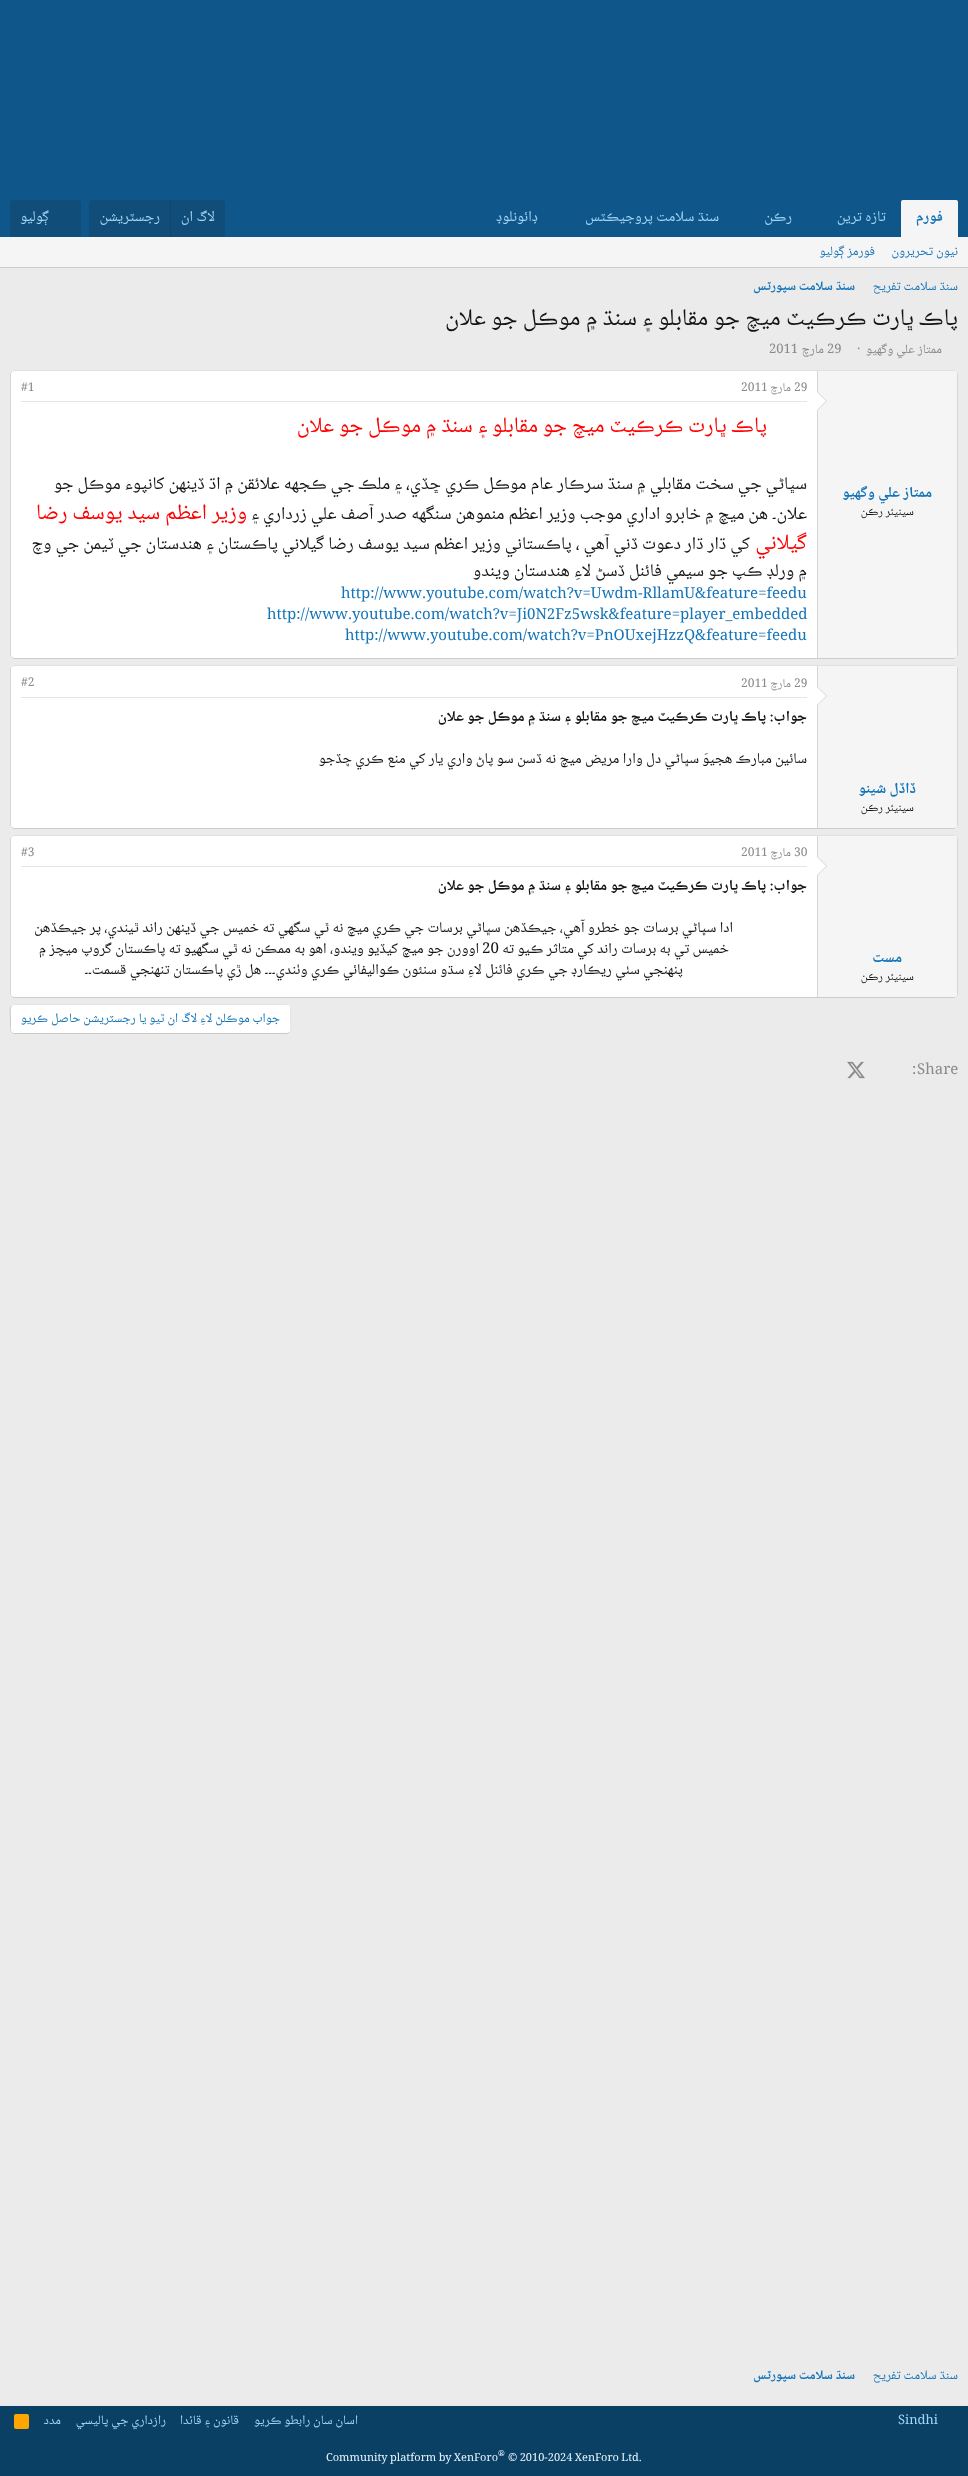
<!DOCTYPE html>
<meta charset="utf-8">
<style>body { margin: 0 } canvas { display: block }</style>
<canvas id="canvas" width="968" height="2476"></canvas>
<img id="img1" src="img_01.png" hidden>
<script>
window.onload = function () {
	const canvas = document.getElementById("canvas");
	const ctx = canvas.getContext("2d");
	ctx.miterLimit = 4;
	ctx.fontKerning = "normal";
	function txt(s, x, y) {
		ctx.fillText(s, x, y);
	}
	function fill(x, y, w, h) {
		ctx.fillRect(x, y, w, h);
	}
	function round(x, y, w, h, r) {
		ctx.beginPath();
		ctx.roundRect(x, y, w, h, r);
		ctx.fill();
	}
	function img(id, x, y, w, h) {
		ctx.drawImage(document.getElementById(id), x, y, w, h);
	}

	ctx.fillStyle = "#EBEBEB";
	fill(0, 0, 968, 2476);
	ctx.fillStyle = "#0F578A";
	fill(0, 0, 968, 237);
	ctx.fillStyle = "#F5F5F5";
	ctx.beginPath();
	ctx.roundRect(901, 200, 57, 37, [2, 2, 0, 0]);
	ctx.fill();
	ctx.fillStyle = "#104D78";
	ctx.beginPath();
	ctx.roundRect(89, 200, 136, 37, [4, 4, 0, 0]);
	ctx.fill();
	ctx.fillStyle = "#114469";
	fill(170, 200, 1, 37);
	ctx.fillStyle = "#104D78";
	ctx.beginPath();
	ctx.roundRect(10, 200, 71, 37, [4, 4, 0, 0]);
	ctx.fill();
	ctx.fillStyle = "#F5F5F5";
	fill(0, 237, 968, 30);
	ctx.fillStyle = "#CCCCCC";
	fill(0, 267, 968, 1);
	ctx.fillStyle = "#FFFFFF";
	round(10, 370, 948, 289, 4);
	ctx.beginPath();
	ctx.moveTo(11.5, 371.5);
	ctx.lineTo(14, 370.5);
	ctx.lineTo(954, 370.5);
	ctx.lineTo(956.5, 371.5);
	ctx.strokeStyle = "#E0E0E0";
	ctx.stroke();
	ctx.beginPath();
	ctx.moveTo(956.5, 371.5);
	ctx.lineTo(957.5, 374);
	ctx.lineTo(957.5, 655);
	ctx.lineTo(956.5, 657.5);
	ctx.strokeStyle = "#D6D6D6";
	ctx.stroke();
	ctx.beginPath();
	ctx.moveTo(956.5, 657.5);
	ctx.lineTo(954, 658.5);
	ctx.lineTo(14, 658.5);
	ctx.lineTo(11.5, 657.5);
	ctx.strokeStyle = "#CCCCCC";
	ctx.stroke();
	ctx.beginPath();
	ctx.moveTo(11.5, 657.5);
	ctx.lineTo(10.5, 655);
	ctx.lineTo(10.5, 374);
	ctx.lineTo(11.5, 371.5);
	ctx.strokeStyle = "#D6D6D6";
	ctx.stroke();
	ctx.fillStyle = "#F5F5F5";
	ctx.beginPath();
	ctx.roundRect(817, 371, 140, 287, [0, 3, 3, 0]);
	ctx.fill();
	ctx.fillStyle = "#D6D6D6";
	fill(817, 371, 1, 287);
	ctx.beginPath();
	ctx.moveTo(817, 411);
	ctx.lineTo(817, 391);
	ctx.lineTo(827, 401);
	ctx.closePath();
	ctx.fill();
	ctx.fillStyle = "#FFFFFF";
	ctx.beginPath();
	ctx.moveTo(817, 410);
	ctx.lineTo(817, 392);
	ctx.lineTo(826, 401);
	ctx.closePath();
	ctx.fill();
	ctx.fillStyle = "#E5E5E5";
	fill(21, 401, 786, 1);
	ctx.fillStyle = "#FFFFFF";
	round(10, 665, 948, 164, 4);
	ctx.beginPath();
	ctx.moveTo(11.5, 666.5);
	ctx.lineTo(14, 665.5);
	ctx.lineTo(954, 665.5);
	ctx.lineTo(956.5, 666.5);
	ctx.strokeStyle = "#E0E0E0";
	ctx.stroke();
	ctx.beginPath();
	ctx.moveTo(956.5, 666.5);
	ctx.bezierCurveTo(957, 667, 957.5, 668, 957.5, 669);
	ctx.lineTo(957.5, 825);
	ctx.bezierCurveTo(957.5, 826, 957, 827, 956.5, 827.5);
	ctx.strokeStyle = "#D6D6D6";
	ctx.stroke();
	ctx.beginPath();
	ctx.moveTo(956.5, 827.5);
	ctx.lineTo(954, 828.5);
	ctx.lineTo(14, 828.5);
	ctx.lineTo(11.5, 827.5);
	ctx.strokeStyle = "#CCCCCC";
	ctx.stroke();
	ctx.beginPath();
	ctx.moveTo(11.5, 827.5);
	ctx.bezierCurveTo(11, 827, 10.5, 826, 10.5, 825);
	ctx.lineTo(10.5, 669);
	ctx.bezierCurveTo(10.5, 668, 11, 667, 11.5, 666.5);
	ctx.strokeStyle = "#D6D6D6";
	ctx.stroke();
	ctx.fillStyle = "#E5E5E5";
	fill(21, 697, 786, 1);
	ctx.fillStyle = "#F5F5F5";
	ctx.beginPath();
	ctx.roundRect(817, 666, 140, 162, [0, 3, 3, 0]);
	ctx.fill();
	ctx.fillStyle = "#D6D6D6";
	fill(817, 666, 1, 162);
	ctx.beginPath();
	ctx.moveTo(817, 706);
	ctx.lineTo(817, 686);
	ctx.lineTo(827, 696);
	ctx.closePath();
	ctx.fill();
	ctx.fillStyle = "#FFFFFF";
	ctx.beginPath();
	ctx.moveTo(817, 705);
	ctx.lineTo(817, 687);
	ctx.lineTo(826, 696);
	ctx.closePath();
	ctx.fill();
	round(10, 835, 948, 163, 4);
	ctx.beginPath();
	ctx.moveTo(11.5, 836.5);
	ctx.lineTo(14, 835.5);
	ctx.lineTo(954, 835.5);
	ctx.lineTo(956.5, 836.5);
	ctx.strokeStyle = "#E0E0E0";
	ctx.stroke();
	ctx.beginPath();
	ctx.moveTo(956.5, 836.5);
	ctx.bezierCurveTo(957, 837, 957.5, 838, 957.5, 839);
	ctx.lineTo(957.5, 994);
	ctx.bezierCurveTo(957.5, 995, 957, 996, 956.5, 996.5);
	ctx.strokeStyle = "#D6D6D6";
	ctx.stroke();
	ctx.beginPath();
	ctx.moveTo(956.5, 996.5);
	ctx.lineTo(954, 997.5);
	ctx.lineTo(14, 997.5);
	ctx.lineTo(11.5, 996.5);
	ctx.strokeStyle = "#CCCCCC";
	ctx.stroke();
	ctx.beginPath();
	ctx.moveTo(11.5, 996.5);
	ctx.bezierCurveTo(11, 996, 10.5, 995, 10.5, 994);
	ctx.lineTo(10.5, 839);
	ctx.bezierCurveTo(10.5, 838, 11, 837, 11.5, 836.5);
	ctx.strokeStyle = "#D6D6D6";
	ctx.stroke();
	ctx.fillStyle = "#F5F5F5";
	ctx.beginPath();
	ctx.roundRect(817, 836, 140, 161, [0, 3, 3, 0]);
	ctx.fill();
	ctx.fillStyle = "#D6D6D6";
	fill(817, 836, 1, 161);
	ctx.beginPath();
	ctx.moveTo(817, 876);
	ctx.lineTo(817, 856);
	ctx.lineTo(827, 866);
	ctx.closePath();
	ctx.fill();
	ctx.fillStyle = "#FFFFFF";
	ctx.beginPath();
	ctx.moveTo(817, 875);
	ctx.lineTo(817, 857);
	ctx.lineTo(826, 866);
	ctx.closePath();
	ctx.fill();
	ctx.fillStyle = "#E5E5E5";
	fill(21, 866, 786, 1);
	ctx.fillStyle = "#FFFFFF";
	round(10, 1004, 281, 30, 4);
	ctx.beginPath();
	ctx.moveTo(11.5, 1005.5);
	ctx.lineTo(14, 1004.5);
	ctx.lineTo(287.5, 1004.5);
	ctx.bezierCurveTo(291, 1005, 290.5, 1009, 290.5, 1011.5);
	ctx.lineTo(290.5, 1019);
	ctx.bezierCurveTo(290.5, 1022, 291.5, 1030.5, 289.5, 1032.5);
	ctx.strokeStyle = "#E3E3E3";
	ctx.stroke();
	ctx.beginPath();
	ctx.moveTo(289.5, 1032.5);
	ctx.lineTo(287, 1033.5);
	ctx.lineTo(13.5, 1033.5);
	ctx.bezierCurveTo(10, 1033, 10.5, 1029, 10.5, 1026.5);
	ctx.lineTo(10.5, 1019);
	ctx.bezierCurveTo(10.5, 1016, 9.5, 1007.5, 11.5, 1005.5);
	ctx.strokeStyle = "#C9C9C9";
	ctx.stroke();
	img("img1", 847, 1061, 18, 18);
	ctx.fillStyle = "#0B4065";
	fill(0, 2406, 968, 70);
	ctx.fillStyle = "#FFA500";
	round(14, 2414, 15, 15, 2);
	ctx.direction = "rtl";
	ctx.font = "bold 15px Noto Naskh Arabic";
	ctx.fillStyle = "#1474B8";
	txt("فورم", 943, 221);
	ctx.font = "15px Noto Naskh Arabic";
	ctx.fillStyle = "#A3D4F5";
	txt("تازہ ترين", 886, 221);
	txt("رڪن", 792, 221);
	txt("سنڌ سلامت پروجيڪٽس", 719, 221);
	txt("ڊائونلوڊ", 538, 221);
	txt("لاگ ان", 215, 221);
	txt("رجسٽريشن", 160, 221);
	txt("ڳوليو", 49, 221);
	ctx.font = "13px Noto Naskh Arabic";
	ctx.fillStyle = "#1474B8";
	txt("نيون تحريرون", 958, 255);
	txt("فورمز ڳوليو", 875, 255);
	txt("سنڌ سلامت تفريح", 958, 290);
	ctx.font = "bold 13px Noto Naskh Arabic";
	txt("سنڌ سلامت سپورٽس", 855, 290);
	ctx.font = "24px Noto Naskh Arabic";
	ctx.fillStyle = "#141414";
	txt("پاڪ ڀارت ڪرڪيٽ ميچ جو مقابلو ۽ سنڌ ۾ موڪل جو علان", 958, 325);
	ctx.font = "13px Noto Naskh Arabic";
	ctx.fillStyle = "#8A8A8A";
	txt("ممتاز علي وگهيو", 942, 353);
	ctx.direction = "ltr";
	txt("·", 857, 353);
	txt("29", 827, 353);
	ctx.direction = "rtl";
	txt("مارچ", 824, 353);
	ctx.direction = "ltr";
	txt("2011", 769, 353);
	ctx.direction = "rtl";
	ctx.font = "bold 15px Noto Naskh Arabic";
	ctx.fillStyle = "#1474B8";
	txt("ممتاز علي وگهيو", 932, 497);
	ctx.font = "12px Noto Naskh Arabic";
	ctx.fillStyle = "#141414";
	txt("سينيئر رڪن", 914, 515);
	ctx.direction = "ltr";
	ctx.fillStyle = "#8A8A8A";
	txt("29", 794, 391);
	ctx.direction = "rtl";
	txt("مارچ", 791, 391);
	ctx.direction = "ltr";
	txt("2011", 741, 391);
	txt("#1", 21, 391);
	ctx.direction = "rtl";
	ctx.font = "22px Noto Naskh Arabic";
	ctx.fillStyle = "#FF0000";
	txt("پاڪ ڀارت ڪرڪيٽ ميچ جو مقابلو ۽ سنڌ ۾ موڪل جو علان", 767, 432);
	ctx.font = "18px Noto Naskh Arabic";
	ctx.fillStyle = "#141414";
	txt("سڀاڻي جي سخت مقابلي ۾ سنڌ سرڪار عام موڪل ڪري ڇڏي، ۽ ملڪ جي ڪجهه علائقن ۾ اڌ ڏينهن کانپوء موڪل جو", 807, 489);
	txt("علان۔ هن ميچ ۾", 807, 519);
	txt("خابرو اداري موجب وزير اعظم منموهن سنگهه صدر آصف علي زرداري ۽", 701, 519);
	ctx.font = "22px Noto Naskh Arabic";
	ctx.fillStyle = "#FF0000";
	txt("وزير اعظم سيد يوسف رضا", 247, 519);
	txt("گيلاني", 807, 549);
	ctx.font = "18px Noto Naskh Arabic";
	ctx.fillStyle = "#141414";
	txt("کي ڌار ڌار دعوت ڏني آهي ، پاڪستاني وزير اعظم سيد يوسف رضا گيلاني پاڪستان ۽ هندستان جي ٽيمن جي وچ", 750, 549);
	txt("۾ ورلڊ ڪپ جو سيمي فائنل ڏسڻ لاءِ هندستان ويندو", 807, 576);
	ctx.direction = "ltr";
	ctx.font = "15px Noto Naskh Arabic";
	ctx.fillStyle = "#1474B8";
	txt("http://www.youtube.com/watch?v=Uwdm-RllamU&feature=feedu", 341, 598);
	txt("http://www.youtube.com/watch?v=Ji0N2Fz5wsk&feature=player_embedded", 267, 619);
	txt("http://www.youtube.com/watch?v=PnOUxejHzzQ&feature=feedu", 345, 640);
	ctx.font = "12px Noto Naskh Arabic";
	ctx.fillStyle = "#8A8A8A";
	txt("29", 794, 687);
	ctx.direction = "rtl";
	txt("مارچ", 791, 687);
	ctx.direction = "ltr";
	txt("2011", 741, 687);
	txt("#2", 21, 686);
	ctx.direction = "rtl";
	ctx.font = "bold 15px Noto Naskh Arabic";
	ctx.fillStyle = "#141414";
	txt("جواب: پاڪ ڀارت ڪرڪيٽ ميچ جو مقابلو ۽ سنڌ ۾ موڪل جو علان", 807, 721);
	ctx.font = "15px Noto Naskh Arabic";
	txt("سائين مبارڪ هجيوَ", 807, 763);
	txt("سڀاڻي دل وارا مريض ميچ نه ڏسن سو پاڻ واري يار کي منع ڪري ڇڏجو", 699, 763);
	ctx.font = "bold 15px Noto Naskh Arabic";
	ctx.fillStyle = "#1474B8";
	txt("ڏاڏل شينو", 916, 793);
	ctx.font = "12px Noto Naskh Arabic";
	ctx.fillStyle = "#141414";
	txt("سينيئر رڪن", 914, 811);
	ctx.font = "bold 15px Noto Naskh Arabic";
	ctx.fillStyle = "#1474B8";
	txt("مست", 902, 962);
	ctx.font = "12px Noto Naskh Arabic";
	ctx.fillStyle = "#141414";
	txt("سينيئر رڪن", 914, 980);
	ctx.direction = "ltr";
	ctx.fillStyle = "#8A8A8A";
	txt("30", 794, 856);
	ctx.direction = "rtl";
	txt("مارچ", 791, 856);
	ctx.direction = "ltr";
	txt("2011", 741, 856);
	txt("#3", 21, 856);
	ctx.direction = "rtl";
	ctx.font = "bold 15px Noto Naskh Arabic";
	ctx.fillStyle = "#141414";
	txt("جواب: پاڪ ڀارت ڪرڪيٽ ميچ جو مقابلو ۽ سنڌ ۾ موڪل جو علان", 807, 890);
	ctx.font = "15px Noto Naskh Arabic";
	txt("ادا سڀاڻي برسات جو خطرو آهي، جيڪڏهن سڀاڻي برسات جي ڪري ميچ نه ٿي سگهي ته خميس جي ڏينهن راند ٿيندي، پر جيڪڏهن", 733, 932);
	txt("خميس تي به برسات راند کي متاثر ڪيو ته", 729, 953);
	ctx.direction = "ltr";
	txt("20", 482, 953);
	ctx.direction = "rtl";
	txt("اوورن جو ميچ کيڏيو ويندو، اهو به ممڪن نه ٿي سگهيو ته پاڪستان گروپ ميچز ۾", 479, 953);
	txt("پنهنجي سٺي ريڪارڊ‌ جي ڪري فائنل لاءِ‌ سڌو سنئون ڪواليفائي ڪري وٺندي۔۔۔ هل ڙي پاڪستان تنهنجي قسمت۔۔", 683, 974);
	ctx.font = "13px Noto Naskh Arabic";
	ctx.fillStyle = "#1474B8";
	txt("جواب موڪلڻ لاءِ لاگ ان ٿيو يا رجسٽريشن حاصل ڪريو", 280, 1022);
	ctx.direction = "ltr";
	ctx.font = "15px Noto Naskh Arabic";
	ctx.fillStyle = "#8A8A8A";
	txt("Share", 917, 1074);
	txt(":", 912, 1074);
	ctx.direction = "rtl";
	ctx.font = "13px Noto Naskh Arabic";
	ctx.fillStyle = "#1474B8";
	txt("سنڌ سلامت تفريح", 958, 2379);
	ctx.font = "bold 13px Noto Naskh Arabic";
	txt("سنڌ سلامت سپورٽس", 855, 2379);
	ctx.direction = "ltr";
	ctx.font = "13px Noto Naskh Arabic";
	ctx.fillStyle = "#A3D4F5";
	txt("Sindhi", 898, 2424);
	ctx.direction = "rtl";
	txt("اسان سان رابطو ڪريو", 358, 2424);
	txt("قانون ۽ قائدا", 239, 2424);
	txt("رازداري جي پاليسي", 166, 2424);
	txt("مدد", 61, 2424);
	ctx.direction = "ltr";
	ctx.font = "11px Noto Naskh Arabic";
	ctx.fillStyle = "#E8F4FC";
	txt("© 2010-2024 XenForo Ltd.", 508, 2461);
	ctx.font = "8px Noto Naskh Arabic";
	txt("®", 498, 2456);
	ctx.font = "11px Noto Naskh Arabic";
	txt("Community platform by XenForo", 326, 2461);
};
</script>
